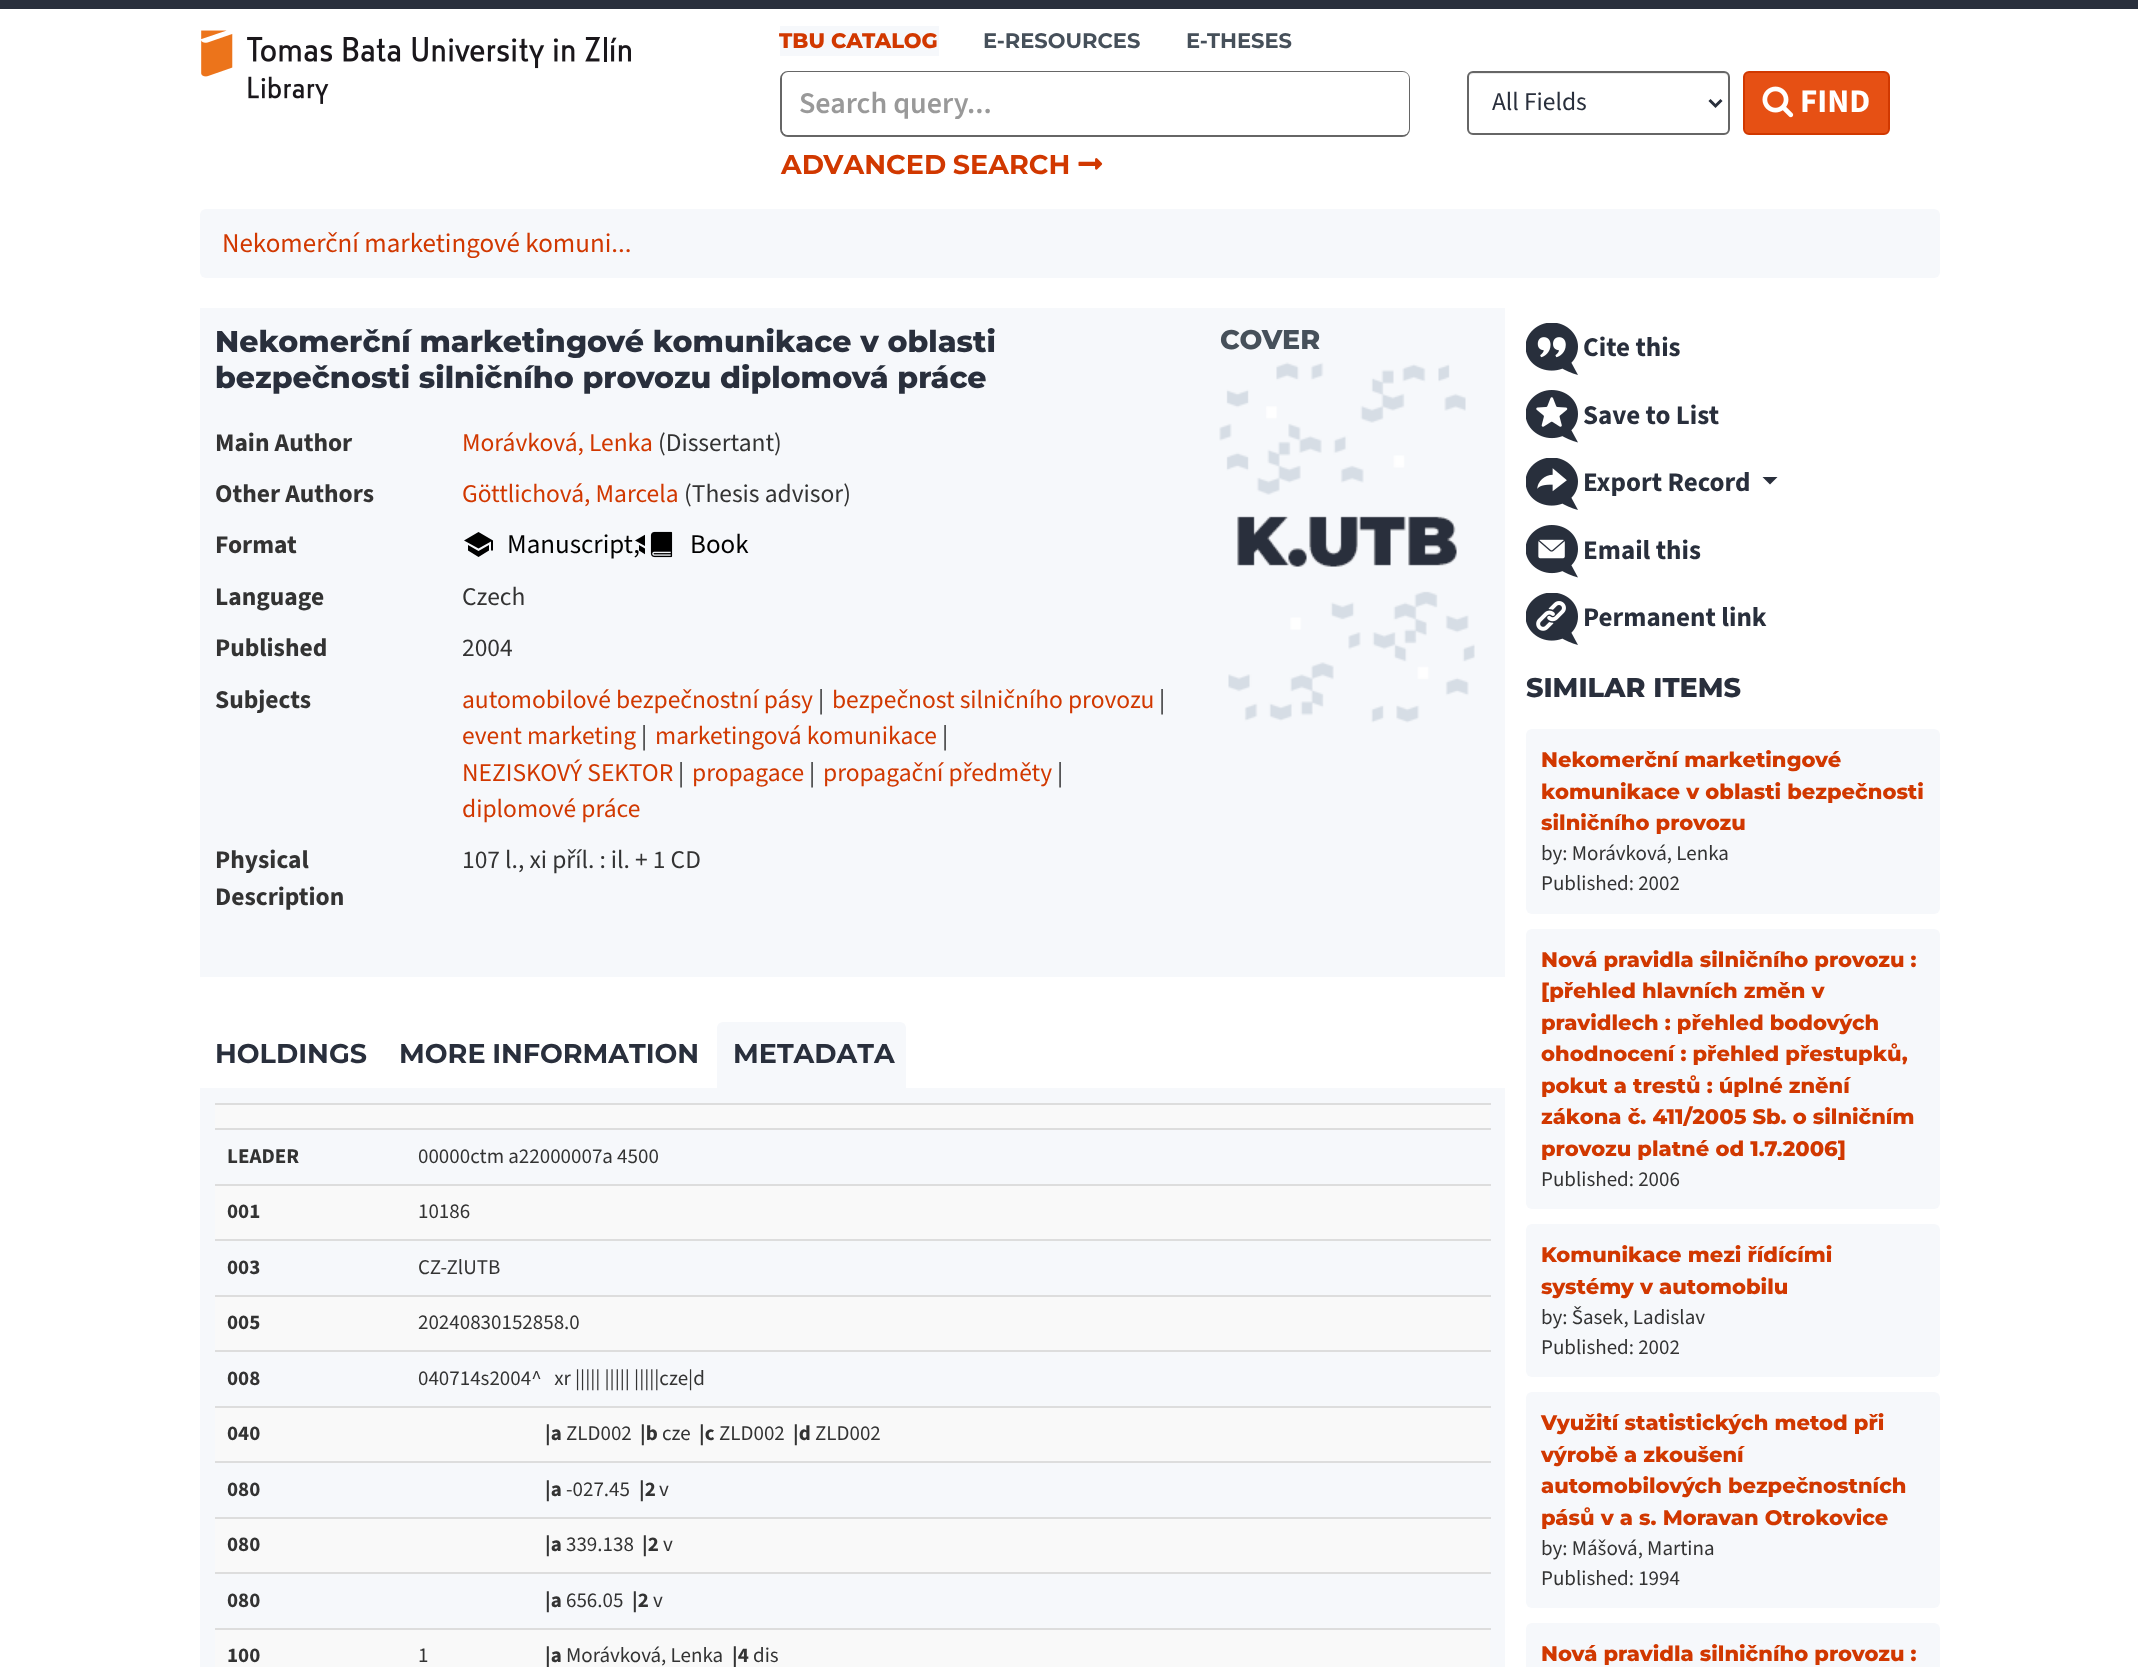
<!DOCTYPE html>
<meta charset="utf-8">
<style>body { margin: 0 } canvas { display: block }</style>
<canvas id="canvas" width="2138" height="1667"></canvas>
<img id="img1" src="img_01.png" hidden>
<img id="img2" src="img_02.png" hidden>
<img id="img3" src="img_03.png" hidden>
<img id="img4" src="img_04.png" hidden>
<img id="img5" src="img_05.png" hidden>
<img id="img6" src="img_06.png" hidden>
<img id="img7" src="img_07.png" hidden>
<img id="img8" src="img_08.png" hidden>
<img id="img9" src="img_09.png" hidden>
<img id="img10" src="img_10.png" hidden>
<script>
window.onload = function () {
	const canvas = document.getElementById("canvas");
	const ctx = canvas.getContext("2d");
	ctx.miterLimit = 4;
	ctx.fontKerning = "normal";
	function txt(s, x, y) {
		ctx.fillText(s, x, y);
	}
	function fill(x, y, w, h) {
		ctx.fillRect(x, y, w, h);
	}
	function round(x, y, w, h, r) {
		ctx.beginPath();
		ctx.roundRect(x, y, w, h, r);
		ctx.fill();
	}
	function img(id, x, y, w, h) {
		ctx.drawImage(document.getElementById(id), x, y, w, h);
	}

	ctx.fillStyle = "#FFFFFF";
	fill(0, 0, 2138, 1667);
	ctx.fillStyle = "#292F3C";
	fill(0, 0, 2138, 9);
	img("img1", 201, 30, 430, 74);
	ctx.fillStyle = "#F6F8FB";
	fill(780, 26, 159, 30);
	ctx.beginPath();
	ctx.roundRect(781, 72, 628, 64, 7);
	ctx.strokeStyle = "#666666";
	ctx.lineWidth = 2;
	ctx.stroke();
	ctx.fillStyle = "#FFFFFF";
	round(782, 72, 627, 63, 6);
	ctx.fillStyle = "#ECECEC";
	ctx.beginPath();
	ctx.moveTo(1473, 74);
	ctx.lineTo(1724, 74);
	ctx.bezierCurveTo(1726, 74, 1728, 76, 1728, 78);
	ctx.lineTo(1728, 77);
	ctx.bezierCurveTo(1728, 74, 1726, 72, 1723, 72);
	ctx.lineTo(1474, 72);
	ctx.bezierCurveTo(1472, 72, 1470, 74, 1469, 76);
	ctx.bezierCurveTo(1470, 75, 1472, 74, 1473, 74);
	ctx.closePath();
	ctx.fill();
	ctx.beginPath();
	ctx.roundRect(1468, 72, 261, 62, 5);
	ctx.stroke();
	ctx.beginPath();
	ctx.moveTo(1709.5, 100);
	ctx.lineTo(1715.5, 106);
	ctx.lineTo(1721.5, 100);
	ctx.strokeStyle = "#292F3C";
	ctx.lineWidth = 3;
	ctx.stroke();
	ctx.fillStyle = "#E65014";
	ctx.beginPath();
	ctx.roundRect(1744, 72, 145, 62, 5);
	ctx.fill();
	ctx.strokeStyle = "#D13800";
	ctx.lineWidth = 2;
	ctx.stroke();
	img("img2", 1762, 86, 32, 32);
	img("img3", 1078, 158, 25, 12);
	ctx.fillStyle = "#F6F8FB";
	round(200, 209, 1740, 69, 6);
	fill(200, 308, 1305, 669);
	ctx.fillStyle = "#000000";
	ctx.beginPath();
	ctx.moveTo(478.5, 532);
	ctx.lineTo(464, 540.5);
	ctx.lineTo(478.5, 548.5);
	ctx.lineTo(491, 541.5);
	ctx.lineTo(491, 550.5);
	ctx.lineTo(493, 550.5);
	ctx.lineTo(493, 540.5);
	ctx.closePath();
	ctx.fill();
	ctx.beginPath();
	ctx.moveTo(468, 545);
	ctx.lineTo(468, 550.5);
	ctx.lineTo(478.5, 557);
	ctx.lineTo(489, 550.5);
	ctx.lineTo(489, 545);
	ctx.lineTo(478.5, 551);
	ctx.closePath();
	ctx.fill();
	ctx.save();
	ctx.beginPath();
	ctx.rect(633, 528, 12, 33);
	ctx.clip();
	ctx.beginPath();
	ctx.moveTo(649.5, 532);
	ctx.lineTo(635, 540.5);
	ctx.lineTo(649.5, 548.5);
	ctx.lineTo(662, 541.5);
	ctx.lineTo(662, 550.5);
	ctx.lineTo(664, 550.5);
	ctx.lineTo(664, 540.5);
	ctx.closePath();
	ctx.fill();
	ctx.beginPath();
	ctx.moveTo(639, 545);
	ctx.lineTo(639, 550.5);
	ctx.lineTo(649.5, 557);
	ctx.lineTo(660, 550.5);
	ctx.lineTo(660, 545);
	ctx.lineTo(649.5, 551);
	ctx.closePath();
	ctx.fill();
	ctx.restore();
	img("img4", 650, 531, 23, 27);
	img("img5", 1219, 362, 256, 361);
	ctx.fillStyle = "#F6F8FB";
	fill(200, 1088, 1305, 579);
	ctx.beginPath();
	ctx.roundRect(717, 1022, 189, 67, [6, 6, 0, 0]);
	ctx.fill();
	ctx.fillStyle = "#F9F9F9";
	fill(215, 1105, 1275, 23);
	ctx.fillStyle = "#DDDDDD";
	fill(215, 1103, 1276, 2);
	fill(215, 1128, 1276, 2);
	ctx.fillStyle = "#F9F9F9";
	fill(215, 1186, 1275, 53);
	ctx.fillStyle = "#DDDDDD";
	fill(215, 1184, 1276, 2);
	fill(215, 1239, 1276, 2);
	ctx.fillStyle = "#F9F9F9";
	fill(215, 1297, 1275, 53);
	ctx.fillStyle = "#DDDDDD";
	fill(215, 1295, 1276, 2);
	fill(215, 1350, 1276, 2);
	ctx.fillStyle = "#F9F9F9";
	fill(215, 1408, 1275, 53);
	ctx.fillStyle = "#DDDDDD";
	fill(215, 1406, 1276, 2);
	fill(215, 1461, 1276, 2);
	ctx.fillStyle = "#F9F9F9";
	fill(215, 1519, 1275, 53);
	ctx.fillStyle = "#DDDDDD";
	fill(215, 1517, 1276, 2);
	fill(215, 1572, 1276, 2);
	ctx.fillStyle = "#F9F9F9";
	fill(215, 1630, 1275, 37);
	ctx.fillStyle = "#DDDDDD";
	fill(215, 1628, 1276, 2);
	img("img6", 1526, 323, 52, 52);
	img("img7", 1526, 390, 52, 53);
	img("img8", 1526, 458, 52, 52);
	ctx.fillStyle = "#292F3C";
	ctx.beginPath();
	ctx.moveTo(1762.5, 477);
	ctx.lineTo(1777.5, 477);
	ctx.lineTo(1770, 484.5);
	ctx.closePath();
	ctx.fill();
	img("img9", 1526, 525, 52, 53);
	img("img10", 1526, 593, 52, 52);
	ctx.fillStyle = "#F6F8FB";
	round(1526, 729, 414, 185, 6);
	round(1526, 929, 414, 280, 6);
	round(1526, 1224, 414, 153, 6);
	round(1526, 1392, 414, 216, 6);
	round(1526, 1623, 414, 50, 6);
	ctx.font = "800 21px Montserrat";
	ctx.fillStyle = "#D13800";
	txt("TBU CATALOG", 779, 48);
	ctx.font = "bold 21px Montserrat";
	ctx.fillStyle = "#46505A";
	txt("E-RESOURCES", 983, 48);
	txt("E-THESES", 1186, 48);
	ctx.font = "600 30px 'Source Sans 3'";
	ctx.fillStyle = "#999999";
	txt("Search query...", 799, 113);
	ctx.font = "25.5px 'Source Sans 3'";
	ctx.fillStyle = "#292F3C";
	txt("All Fields", 1492, 110);
	ctx.font = "bold 33px 'Source Sans 3'";
	ctx.fillStyle = "#FFFFFF";
	txt("FIND", 1800, 112);
	ctx.wordSpacing = "-1px";
	ctx.font = "bold 27px Montserrat";
	ctx.fillStyle = "#D13800";
	txt("ADVANCED SEARCH", 781, 174);
	ctx.wordSpacing = "0px";
	ctx.font = "27px 'Source Sans 3'";
	txt("Nekomerční marketingové komuni...", 222, 252);
	ctx.font = "800 30px Montserrat";
	ctx.fillStyle = "#292F3C";
	txt("Nekomerční marketingové komunikace v oblasti", 215, 352);
	txt("bezpečnosti silničního provozu diplomová práce", 215, 388);
	ctx.font = "bold 25.5px 'Source Sans 3'";
	ctx.fillStyle = "#333333";
	txt("Main Author", 215, 451);
	ctx.font = "25.5px 'Source Sans 3'";
	ctx.fillStyle = "#D13800";
	txt("Morávková, Lenka", 462, 451);
	ctx.fillStyle = "#333333";
	txt("(Dissertant)", 658, 451);
	ctx.font = "bold 25.5px 'Source Sans 3'";
	txt("Other Authors", 215, 502);
	ctx.font = "25.5px 'Source Sans 3'";
	ctx.fillStyle = "#D13800";
	txt("Göttlichová, Marcela", 462, 502);
	ctx.fillStyle = "#333333";
	txt("(Thesis advisor)", 684, 502);
	ctx.font = "bold 25.5px 'Source Sans 3'";
	txt("Format", 215, 553);
	ctx.font = "27px 'Source Sans 3'";
	ctx.fillStyle = "#000000";
	txt("Manuscript,", 507, 553);
	txt("Book", 690, 553);
	ctx.font = "bold 25.5px 'Source Sans 3'";
	ctx.fillStyle = "#333333";
	txt("Language", 215, 605);
	ctx.font = "25.5px 'Source Sans 3'";
	txt("Czech", 462, 605);
	ctx.font = "bold 25.5px 'Source Sans 3'";
	txt("Published", 215, 656);
	ctx.font = "25.5px 'Source Sans 3'";
	txt("2004", 462, 656);
	ctx.font = "bold 25.5px 'Source Sans 3'";
	txt("Subjects", 215, 708);
	ctx.font = "25.5px 'Source Sans 3'";
	ctx.fillStyle = "#D13800";
	txt("automobilové bezpečnostní pásy", 462, 708);
	ctx.fillStyle = "#333333";
	txt("|", 818, 708);
	ctx.fillStyle = "#D13800";
	txt("bezpečnost silničního provozu", 832, 708);
	ctx.fillStyle = "#333333";
	txt("|", 1159, 708);
	ctx.fillStyle = "#D13800";
	txt("event marketing", 462, 744);
	ctx.fillStyle = "#333333";
	txt("|", 641, 744);
	ctx.fillStyle = "#D13800";
	txt("marketingová komunikace", 655, 744);
	ctx.fillStyle = "#333333";
	txt("|", 942, 744);
	ctx.fillStyle = "#D13800";
	txt("NEZISKOVÝ SEKTOR", 462, 781);
	ctx.fillStyle = "#333333";
	txt("|", 678, 781);
	ctx.fillStyle = "#D13800";
	txt("propagace", 692, 781);
	ctx.fillStyle = "#333333";
	txt("|", 809, 781);
	ctx.fillStyle = "#D13800";
	txt("propagační předměty", 823, 781);
	ctx.fillStyle = "#333333";
	txt("|", 1057, 781);
	ctx.fillStyle = "#D13800";
	txt("diplomové práce", 462, 817);
	ctx.font = "bold 25.5px 'Source Sans 3'";
	ctx.fillStyle = "#333333";
	txt("Physical", 215, 868);
	txt("Description", 215, 905);
	ctx.font = "25.5px 'Source Sans 3'";
	txt("107 l., xi příl. : il. + 1 CD", 462, 868);
	ctx.font = "800 27px Montserrat";
	ctx.fillStyle = "#46505A";
	txt("COVER", 1220, 349);
	ctx.font = "bold 27px Montserrat";
	ctx.fillStyle = "#292F3C";
	txt("HOLDINGS", 215, 1063);
	ctx.wordSpacing = "-1px";
	txt("MORE INFORMATION", 399, 1063);
	ctx.wordSpacing = "0px";
	txt("METADATA", 733, 1063);
	ctx.font = "bold 21px 'Source Sans 3'";
	ctx.fillStyle = "#333333";
	txt("LEADER", 227, 1163);
	ctx.font = "21px 'Source Sans 3'";
	txt("00000ctm a22000007a 4500", 418, 1163);
	ctx.font = "bold 21px 'Source Sans 3'";
	txt("001", 227, 1218);
	ctx.font = "21px 'Source Sans 3'";
	txt("10186", 418, 1218);
	ctx.font = "bold 21px 'Source Sans 3'";
	txt("003", 227, 1274);
	ctx.font = "21px 'Source Sans 3'";
	txt("CZ-ZlUTB", 418, 1274);
	ctx.font = "bold 21px 'Source Sans 3'";
	txt("005", 227, 1329);
	ctx.font = "21px 'Source Sans 3'";
	txt("20240830152858.0", 418, 1329);
	ctx.font = "bold 21px 'Source Sans 3'";
	txt("008", 227, 1385);
	ctx.font = "21px 'Source Sans 3'";
	txt("040714s2004^   xr ||||| ||||| |||||cze|d", 418, 1385);
	ctx.font = "bold 21px 'Source Sans 3'";
	txt("040", 227, 1440);
	txt("|a", 545, 1440);
	ctx.font = "21px 'Source Sans 3'";
	txt("ZLD002", 566, 1440);
	ctx.font = "bold 21px 'Source Sans 3'";
	txt("|b", 640, 1440);
	ctx.font = "21px 'Source Sans 3'";
	txt("cze", 662, 1440);
	ctx.font = "bold 21px 'Source Sans 3'";
	txt("|c", 699, 1440);
	ctx.font = "21px 'Source Sans 3'";
	txt("ZLD002", 719, 1440);
	ctx.font = "bold 21px 'Source Sans 3'";
	txt("|d", 793, 1440);
	ctx.font = "21px 'Source Sans 3'";
	txt("ZLD002", 815, 1440);
	ctx.font = "bold 21px 'Source Sans 3'";
	txt("080", 227, 1496);
	txt("|a", 545, 1496);
	ctx.font = "21px 'Source Sans 3'";
	txt("-027.45", 566, 1496);
	ctx.font = "bold 21px 'Source Sans 3'";
	txt("|2", 639, 1496);
	ctx.font = "21px 'Source Sans 3'";
	txt("v", 659, 1496);
	ctx.font = "bold 21px 'Source Sans 3'";
	txt("080", 227, 1551);
	txt("|a", 545, 1551);
	ctx.font = "21px 'Source Sans 3'";
	txt("339.138", 566, 1551);
	ctx.font = "bold 21px 'Source Sans 3'";
	txt("|2", 642, 1551);
	ctx.font = "21px 'Source Sans 3'";
	txt("v", 663, 1551);
	ctx.font = "bold 21px 'Source Sans 3'";
	txt("080", 227, 1607);
	txt("|a", 545, 1607);
	ctx.font = "21px 'Source Sans 3'";
	txt("656.05", 566, 1607);
	ctx.font = "bold 21px 'Source Sans 3'";
	txt("|2", 632, 1607);
	ctx.font = "21px 'Source Sans 3'";
	txt("v", 653, 1607);
	ctx.font = "bold 21px 'Source Sans 3'";
	txt("100", 227, 1662);
	ctx.font = "21px 'Source Sans 3'";
	txt("1", 418, 1662);
	ctx.font = "bold 21px 'Source Sans 3'";
	txt("|a", 545, 1662);
	ctx.font = "21px 'Source Sans 3'";
	txt("Morávková, Lenka", 566, 1662);
	ctx.font = "bold 21px 'Source Sans 3'";
	txt("|4", 732, 1662);
	ctx.font = "21px 'Source Sans 3'";
	txt("dis", 753, 1662);
	ctx.font = "bold 27px 'Source Sans 3'";
	ctx.fillStyle = "#292F3C";
	txt("Cite this", 1583, 356);
	txt("Save to List", 1583, 424);
	txt("Export Record", 1583, 491);
	txt("Email this", 1583, 559);
	txt("Permanent link", 1583, 626);
	ctx.font = "800 27px Montserrat";
	txt("SIMILAR ITEMS", 1526, 697);
	ctx.font = "800 21px Montserrat";
	ctx.fillStyle = "#D13800";
	txt("Nekomerční marketingové", 1541, 767);
	txt("komunikace v oblasti bezpečnosti", 1541, 799);
	txt("silničního provozu", 1541, 830);
	ctx.font = "21px 'Source Sans 3'";
	ctx.fillStyle = "#333333";
	txt("by: Morávková, Lenka", 1541, 860);
	txt("Published: 2002", 1541, 890);
	ctx.font = "800 21px Montserrat";
	ctx.fillStyle = "#D13800";
	txt("Nová pravidla silničního provozu :", 1541, 967);
	txt("[přehled hlavních změn v", 1541, 998);
	txt("pravidlech : přehled bodových", 1541, 1030);
	txt("ohodnocení : přehled přestupků,", 1541, 1061);
	txt("pokut a trestů : úplné znění", 1541, 1093);
	txt("zákona č. 411/2005 Sb. o silničním", 1541, 1124);
	txt("provozu platné od 1.7.2006]", 1541, 1156);
	ctx.font = "21px 'Source Sans 3'";
	ctx.fillStyle = "#333333";
	txt("Published: 2006", 1541, 1186);
	ctx.font = "800 21px Montserrat";
	ctx.fillStyle = "#D13800";
	txt("Komunikace mezi řídícími", 1541, 1262);
	txt("systémy v automobilu", 1541, 1294);
	ctx.font = "21px 'Source Sans 3'";
	ctx.fillStyle = "#333333";
	txt("by: Šasek, Ladislav", 1541, 1324);
	txt("Published: 2002", 1541, 1354);
	ctx.font = "800 21px Montserrat";
	ctx.fillStyle = "#D13800";
	txt("Využití statistických metod při", 1541, 1430);
	txt("výrobě a zkoušení", 1541, 1462);
	txt("automobilových bezpečnostních", 1541, 1493);
	txt("pásů v a s. Moravan Otrokovice", 1541, 1525);
	ctx.font = "21px 'Source Sans 3'";
	ctx.fillStyle = "#333333";
	txt("by: Mášová, Martina", 1541, 1555);
	txt("Published: 1994", 1541, 1585);
	ctx.font = "800 21px Montserrat";
	ctx.fillStyle = "#D13800";
	txt("Nová pravidla silničního provozu :", 1541, 1661);
};
</script>
